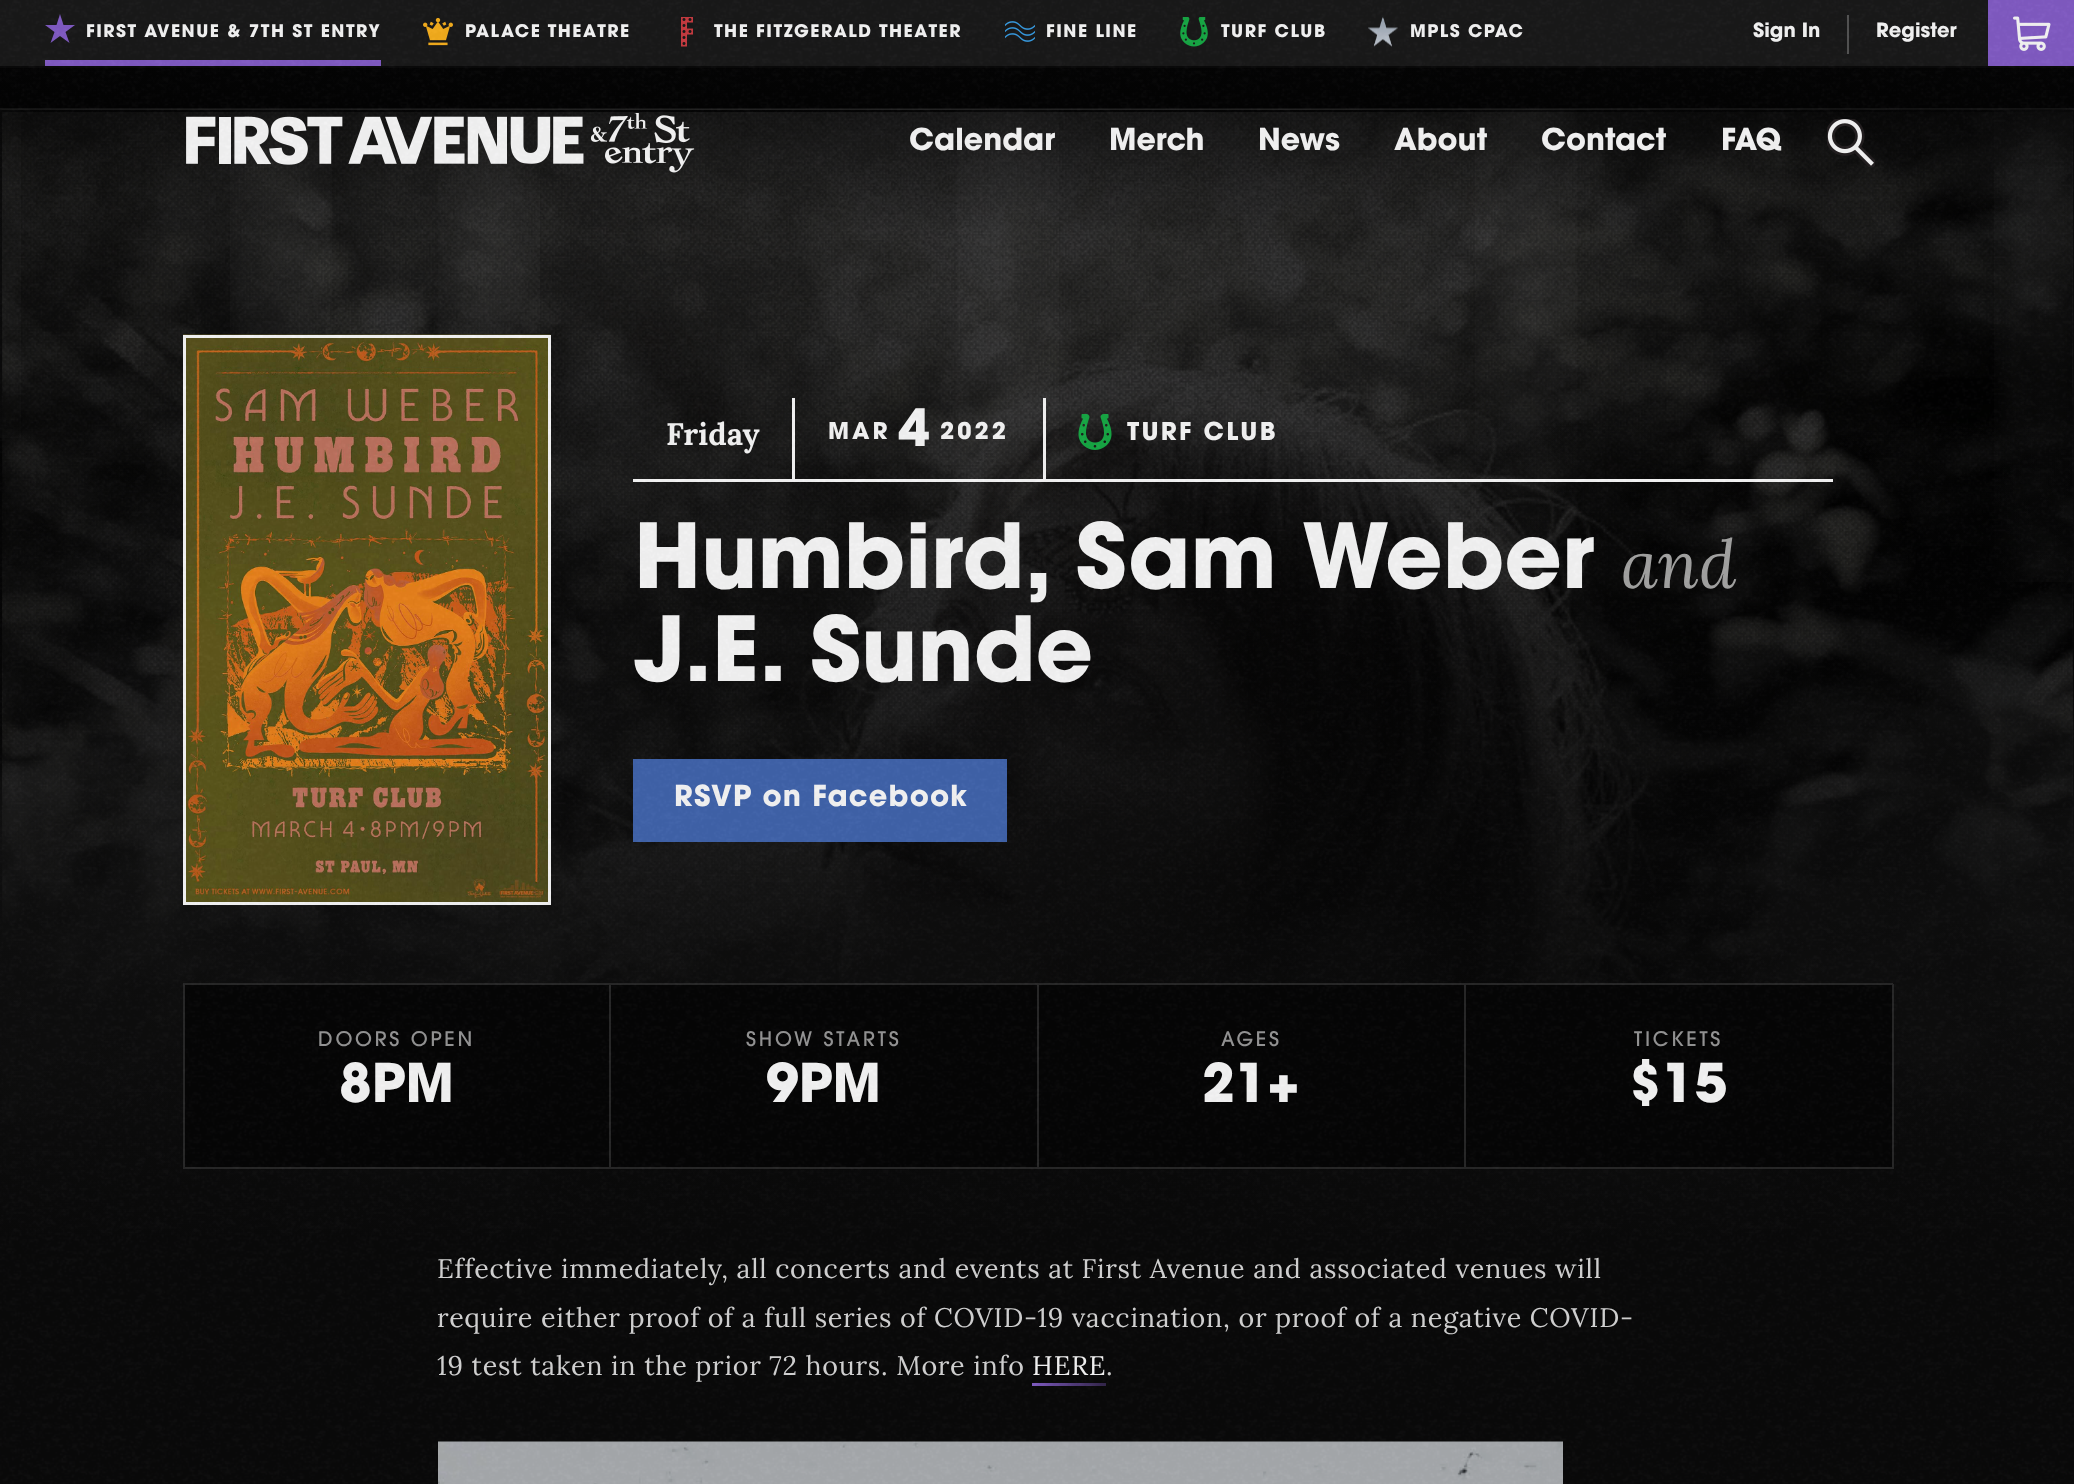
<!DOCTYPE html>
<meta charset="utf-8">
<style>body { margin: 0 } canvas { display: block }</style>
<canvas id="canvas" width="2074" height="1484"></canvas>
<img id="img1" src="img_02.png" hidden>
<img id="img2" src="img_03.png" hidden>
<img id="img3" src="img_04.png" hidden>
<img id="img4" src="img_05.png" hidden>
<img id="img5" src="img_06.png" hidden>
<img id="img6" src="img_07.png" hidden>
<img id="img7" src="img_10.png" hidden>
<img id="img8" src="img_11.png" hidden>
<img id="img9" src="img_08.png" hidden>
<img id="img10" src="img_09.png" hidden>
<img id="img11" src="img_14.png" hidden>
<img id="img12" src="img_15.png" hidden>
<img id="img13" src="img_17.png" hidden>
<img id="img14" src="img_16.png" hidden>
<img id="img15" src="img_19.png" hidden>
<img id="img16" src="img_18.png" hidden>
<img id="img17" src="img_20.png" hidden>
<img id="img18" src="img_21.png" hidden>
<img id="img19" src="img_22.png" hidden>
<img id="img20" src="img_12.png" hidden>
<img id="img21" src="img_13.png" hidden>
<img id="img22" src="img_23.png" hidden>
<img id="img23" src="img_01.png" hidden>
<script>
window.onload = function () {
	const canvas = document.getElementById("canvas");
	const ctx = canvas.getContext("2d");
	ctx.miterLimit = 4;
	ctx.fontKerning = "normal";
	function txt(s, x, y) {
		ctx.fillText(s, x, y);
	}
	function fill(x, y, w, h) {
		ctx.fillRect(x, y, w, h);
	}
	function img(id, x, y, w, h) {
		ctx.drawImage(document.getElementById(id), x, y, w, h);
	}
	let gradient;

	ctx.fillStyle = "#000000";
	fill(0, 0, 2074, 1484);
	ctx.fillStyle = "#191919";
	fill(0, 0, 1988, 66);
	ctx.fillStyle = "#090909";
	fill(0, 66, 2074, 2);
	ctx.fillStyle = "#865FCC";
	ctx.beginPath();
	ctx.moveTo(60, 14);
	ctx.lineTo(63.5, 25);
	ctx.lineTo(75, 25);
	ctx.lineTo(65.5, 32);
	ctx.lineTo(69.5, 43);
	ctx.lineTo(60, 36);
	ctx.lineTo(50.5, 43);
	ctx.lineTo(54.5, 32);
	ctx.lineTo(45, 25);
	ctx.lineTo(56.5, 25);
	ctx.closePath();
	ctx.fill();
	fill(45, 60, 336, 6);
	img("img1", 423, 17, 30, 29);
	img("img2", 681, 17, 12, 30);
	img("img3", 1005, 21, 30, 21);
	img("img4", 1180, 17, 28, 30);
	img("img5", 1368, 16, 30, 31);
	ctx.fillStyle = "#565656";
	fill(1847, 15, 2, 39);
	ctx.fillStyle = "#865FCC";
	fill(1988, 0, 86, 66);
	img("img6", 2013, 16, 38, 35);
	ctx.fillStyle = "#282828";
	fill(0, 108, 2074, 2);
	img("img7", 0, 109, 2074, 1127);
	ctx.strokeStyle = "#040404";
	ctx.lineWidth = 2;
	ctx.strokeRect(1, 111, 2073, 1133);
	ctx.fillStyle = "rgba(0, 0, 0, 0.5)";
	fill(2, 112, 2071, 1124);
	img("img8", 2, 112, 2071, 1124);
	gradient = ctx.createRadialGradient(-30, -28.01, 0, -30, -28.01, 168);
	gradient.addColorStop(0, "rgba(255, 255, 255, 0.1)");
	gradient.addColorStop(0.25, "rgba(255, 255, 255, 0.04)");
	gradient.addColorStop(0.5, "rgba(255, 255, 255, 0)");
	ctx.fillStyle = gradient;
	ctx.beginPath();
	ctx.rect(0, 110, 21, 328);
	ctx.save();
	ctx.clip();
	ctx.scale(1, 2939 / 168);
	ctx.fillRect(0, 0, 2074, 85);
	ctx.restore();
	gradient = ctx.createRadialGradient(281, -28.18, 0, 281, -28.18, 169);
	gradient.addColorStop(0, "rgba(255, 255, 255, 0.1)");
	gradient.addColorStop(0.25, "rgba(255, 255, 255, 0.04)");
	gradient.addColorStop(0.5, "rgba(255, 255, 255, 0)");
	ctx.fillStyle = gradient;
	ctx.beginPath();
	ctx.rect(230, 110, 102, 225);
	ctx.save();
	ctx.clip();
	ctx.scale(1, 2939 / 169);
	ctx.fillRect(0, 0, 2074, 86);
	ctx.restore();
	gradient = ctx.createRadialGradient(489, -28.01, 0, 489, -28.01, 168);
	gradient.addColorStop(0, "rgba(255, 255, 255, 0.1)");
	gradient.addColorStop(0.25, "rgba(255, 255, 255, 0.04)");
	gradient.addColorStop(0.5, "rgba(255, 255, 255, 0)");
	ctx.fillStyle = gradient;
	ctx.beginPath();
	ctx.rect(438, 110, 102, 225);
	ctx.save();
	ctx.clip();
	ctx.scale(1, 2939 / 168);
	ctx.fillRect(0, 0, 2074, 85);
	ctx.restore();
	gradient = ctx.createRadialGradient(1008, -28.01, 0, 1008, -28.01, 168);
	gradient.addColorStop(0, "rgba(255, 255, 255, 0.1)");
	gradient.addColorStop(0.25, "rgba(255, 255, 255, 0.04)");
	gradient.addColorStop(0.5, "rgba(255, 255, 255, 0)");
	ctx.fillStyle = gradient;
	ctx.beginPath();
	ctx.rect(957, 110, 102, 472);
	ctx.save();
	ctx.clip();
	ctx.scale(1, 2939 / 168);
	ctx.fillRect(0, 0, 2074, 85);
	ctx.restore();
	gradient = ctx.createRadialGradient(1526, -28.18, 0, 1526, -28.18, 169);
	gradient.addColorStop(0, "rgba(255, 255, 255, 0.1)");
	gradient.addColorStop(0.25, "rgba(255, 255, 255, 0.04)");
	gradient.addColorStop(0.5, "rgba(255, 255, 255, 0)");
	ctx.fillStyle = gradient;
	ctx.beginPath();
	ctx.rect(1475, 110, 102, 472);
	ctx.save();
	ctx.clip();
	ctx.scale(1, 2939 / 169);
	ctx.fillRect(0, 0, 2074, 86);
	ctx.restore();
	gradient = ctx.createRadialGradient(2045, -28.01, 0, 2045, -28.01, 168);
	gradient.addColorStop(0, "rgba(255, 255, 255, 0.1)");
	gradient.addColorStop(0.25, "rgba(255, 255, 255, 0.04)");
	gradient.addColorStop(0.5, "rgba(255, 255, 255, 0)");
	ctx.fillStyle = gradient;
	ctx.beginPath();
	ctx.rect(1994, 110, 80, 472);
	ctx.save();
	ctx.clip();
	ctx.scale(1, 2939 / 168);
	ctx.fillRect(0, 0, 2074, 85);
	ctx.restore();
	gradient = ctx.createLinearGradient(1037, 237, 1037, 0);
	gradient.addColorStop(0, "rgba(5, 5, 5, 0)");
	gradient.addColorStop(0.6, "rgba(5, 5, 5, 0.65)");
	gradient.addColorStop(1, "#050505");
	ctx.fillStyle = gradient;
	fill(0, 68, 2074, 160);
	img("img9", 186, 113, 509, 60);
	img("img10", 1827, 119, 48, 48);
	img("img11", 0, 661, 690, 575);
	img("img12", 1745, 666, 329, 570);
	img("img13", 0, 805, 615, 431);
	img("img14", 0, 761, 425, 475);
	img("img15", 868, 907, 847, 329);
	img("img16", 383, 830, 679, 406);
	img("img17", 1467, 808, 607, 428);
	img("img18", 1248, 982, 595, 254);
	img("img19", 1248, 982, 595, 254);
	gradient = ctx.createLinearGradient(1037, 393, 1037, 1245);
	gradient.addColorStop(0, "rgba(9, 9, 9, 0)");
	gradient.addColorStop(0.65, "rgba(9, 9, 9, 0.8)");
	gradient.addColorStop(1, "#090909");
	ctx.fillStyle = gradient;
	fill(0, 422, 2074, 823);
	img("img20", 183, 334, 368, 568);
	ctx.strokeStyle = "#FFFFFF";
	ctx.lineWidth = 3;
	ctx.strokeRect(184.5, 336.5, 365, 567);
	ctx.fillStyle = "#FFFFFF";
	fill(633, 479, 1200, 3);
	fill(792, 398, 3, 81);
	fill(1043, 398, 3, 81);
	img("img21", 1078, 414, 34, 36);
	ctx.fillStyle = "#4267B2";
	fill(633, 759, 374, 83);
	ctx.fillStyle = "#050505";
	fill(185, 985, 1707, 182);
	ctx.fillStyle = "#282828";
	fill(183, 983, 1710, 2);
	fill(183, 983, 2, 186);
	fill(609, 984, 2, 185);
	fill(185, 1167, 426, 2);
	fill(1037, 984, 2, 185);
	fill(611, 1167, 427, 2);
	fill(1464, 984, 2, 185);
	fill(1038, 1167, 428, 2);
	fill(1892, 984, 2, 185);
	fill(1466, 1167, 427, 2);
	ctx.fillStyle = "#090909";
	fill(0, 1245, 2074, 239);
	gradient = ctx.createLinearGradient(1032, 1385, 1106, 1385);
	gradient.addColorStop(0, "#865FCC");
	gradient.addColorStop(0.5, "#5A4188");
	gradient.addColorStop(1, "#35274D");
	ctx.fillStyle = gradient;
	fill(1032, 1383, 74, 3);
	img("img22", 438, 1441, 1125, 43);
	ctx.letterSpacing = "1.5px";
	ctx.font = "bold 17.3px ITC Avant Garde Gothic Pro";
	ctx.fillStyle = "#FFFFFF";
	txt("FIRST AVENUE & 7TH ST ENTRY", 86, 37);
	txt("PALACE THEATRE", 465, 37);
	txt("THE FITZGERALD THEATER", 714, 37);
	txt("FINE LINE", 1046, 37);
	txt("TURF CLUB", 1221, 37);
	txt("MPLS CPAC", 1410, 37);
	ctx.letterSpacing = "0px";
	ctx.font = "bold 19.5px ITC Avant Garde Gothic Pro";
	txt("Sign In", 1753, 37);
	txt("Register", 1876, 37);
	ctx.font = "bold 30px ITC Avant Garde Gothic Pro";
	txt("Calendar", 909, 150);
	txt("Merch", 1109, 150);
	txt("News", 1258, 150);
	txt("About", 1394, 150);
	txt("Contact", 1541, 150);
	txt("FAQ", 1721, 150);
	ctx.font = "bold 31px Lora";
	txt("Friday", 666, 445);
	ctx.letterSpacing = "3px";
	ctx.font = "bold 23px ITC Avant Garde Gothic Pro";
	txt("MAR", 828, 439);
	ctx.letterSpacing = "0px";
	ctx.font = "bold 51px ITC Avant Garde Gothic Pro";
	txt("4", 898, 446);
	ctx.letterSpacing = "3px";
	ctx.font = "bold 23px ITC Avant Garde Gothic Pro";
	txt("2022", 940, 439);
	ctx.letterSpacing = "2.25px";
	ctx.font = "bold 24.5px ITC Avant Garde Gothic Pro";
	txt("TURF CLUB", 1127, 440);
	ctx.letterSpacing = "0px";
	ctx.font = "bold 89px ITC Avant Garde Gothic Pro";
	txt("Humbird, Sam Weber", 634, 588);
	ctx.font = "italic 67px Lora";
	ctx.fillStyle = "#AAAAA9";
	txt("and", 1621, 588);
	ctx.font = "bold 89px ITC Avant Garde Gothic Pro";
	ctx.fillStyle = "#FFFFFF";
	txt("J.E. Sunde", 634, 681);
	ctx.letterSpacing = "1.2px";
	ctx.font = "bold 28.75px ITC Avant Garde Gothic Pro";
	txt("RSVP on Facebook", 674, 806);
	ctx.letterSpacing = "2.75px";
	ctx.font = "500 20px ITC Avant Garde Gothic Pro";
	ctx.fillStyle = "#9B9B9B";
	txt("DOORS OPEN", 318, 1046);
	ctx.letterSpacing = "0px";
	ctx.font = "bold 53px ITC Avant Garde Gothic Pro";
	ctx.fillStyle = "#FFFFFF";
	txt("8PM", 339, 1102);
	ctx.letterSpacing = "2.75px";
	ctx.font = "500 20px ITC Avant Garde Gothic Pro";
	ctx.fillStyle = "#9B9B9B";
	txt("SHOW STARTS", 746, 1046);
	ctx.letterSpacing = "0px";
	ctx.font = "bold 53px ITC Avant Garde Gothic Pro";
	ctx.fillStyle = "#FFFFFF";
	txt("9PM", 766, 1102);
	ctx.letterSpacing = "2.75px";
	ctx.font = "500 20px ITC Avant Garde Gothic Pro";
	ctx.fillStyle = "#9B9B9B";
	txt("AGES", 1221, 1046);
	ctx.letterSpacing = "0px";
	ctx.font = "bold 53px ITC Avant Garde Gothic Pro";
	ctx.fillStyle = "#FFFFFF";
	txt("21+", 1202, 1102);
	ctx.letterSpacing = "2.75px";
	ctx.font = "500 20px ITC Avant Garde Gothic Pro";
	ctx.fillStyle = "#9B9B9B";
	txt("TICKETS", 1634, 1046);
	ctx.letterSpacing = "0px";
	ctx.font = "bold 53px ITC Avant Garde Gothic Pro";
	ctx.fillStyle = "#FFFFFF";
	txt("$15", 1629, 1102);
	ctx.letterSpacing = "0.75px";
	ctx.font = "26.85px Lora";
	ctx.fillStyle = "#DDDDDD";
	txt("Effective immediately, all concerts and events at First Avenue and associated venues will", 437, 1278);
	txt("require either proof of a full series of COVID-19 vaccination, or proof of a negative COVID-", 437, 1327);
	txt("19 test taken in the prior 72 hours. More info", 437, 1375);
	ctx.fillStyle = "#FFFFFF";
	txt("HERE", 1032, 1375);
	ctx.fillStyle = "#DDDDDD";
	txt(".", 1106, 1375);
	img("img23", 0, 0, 2074, 1484);
};
</script>
